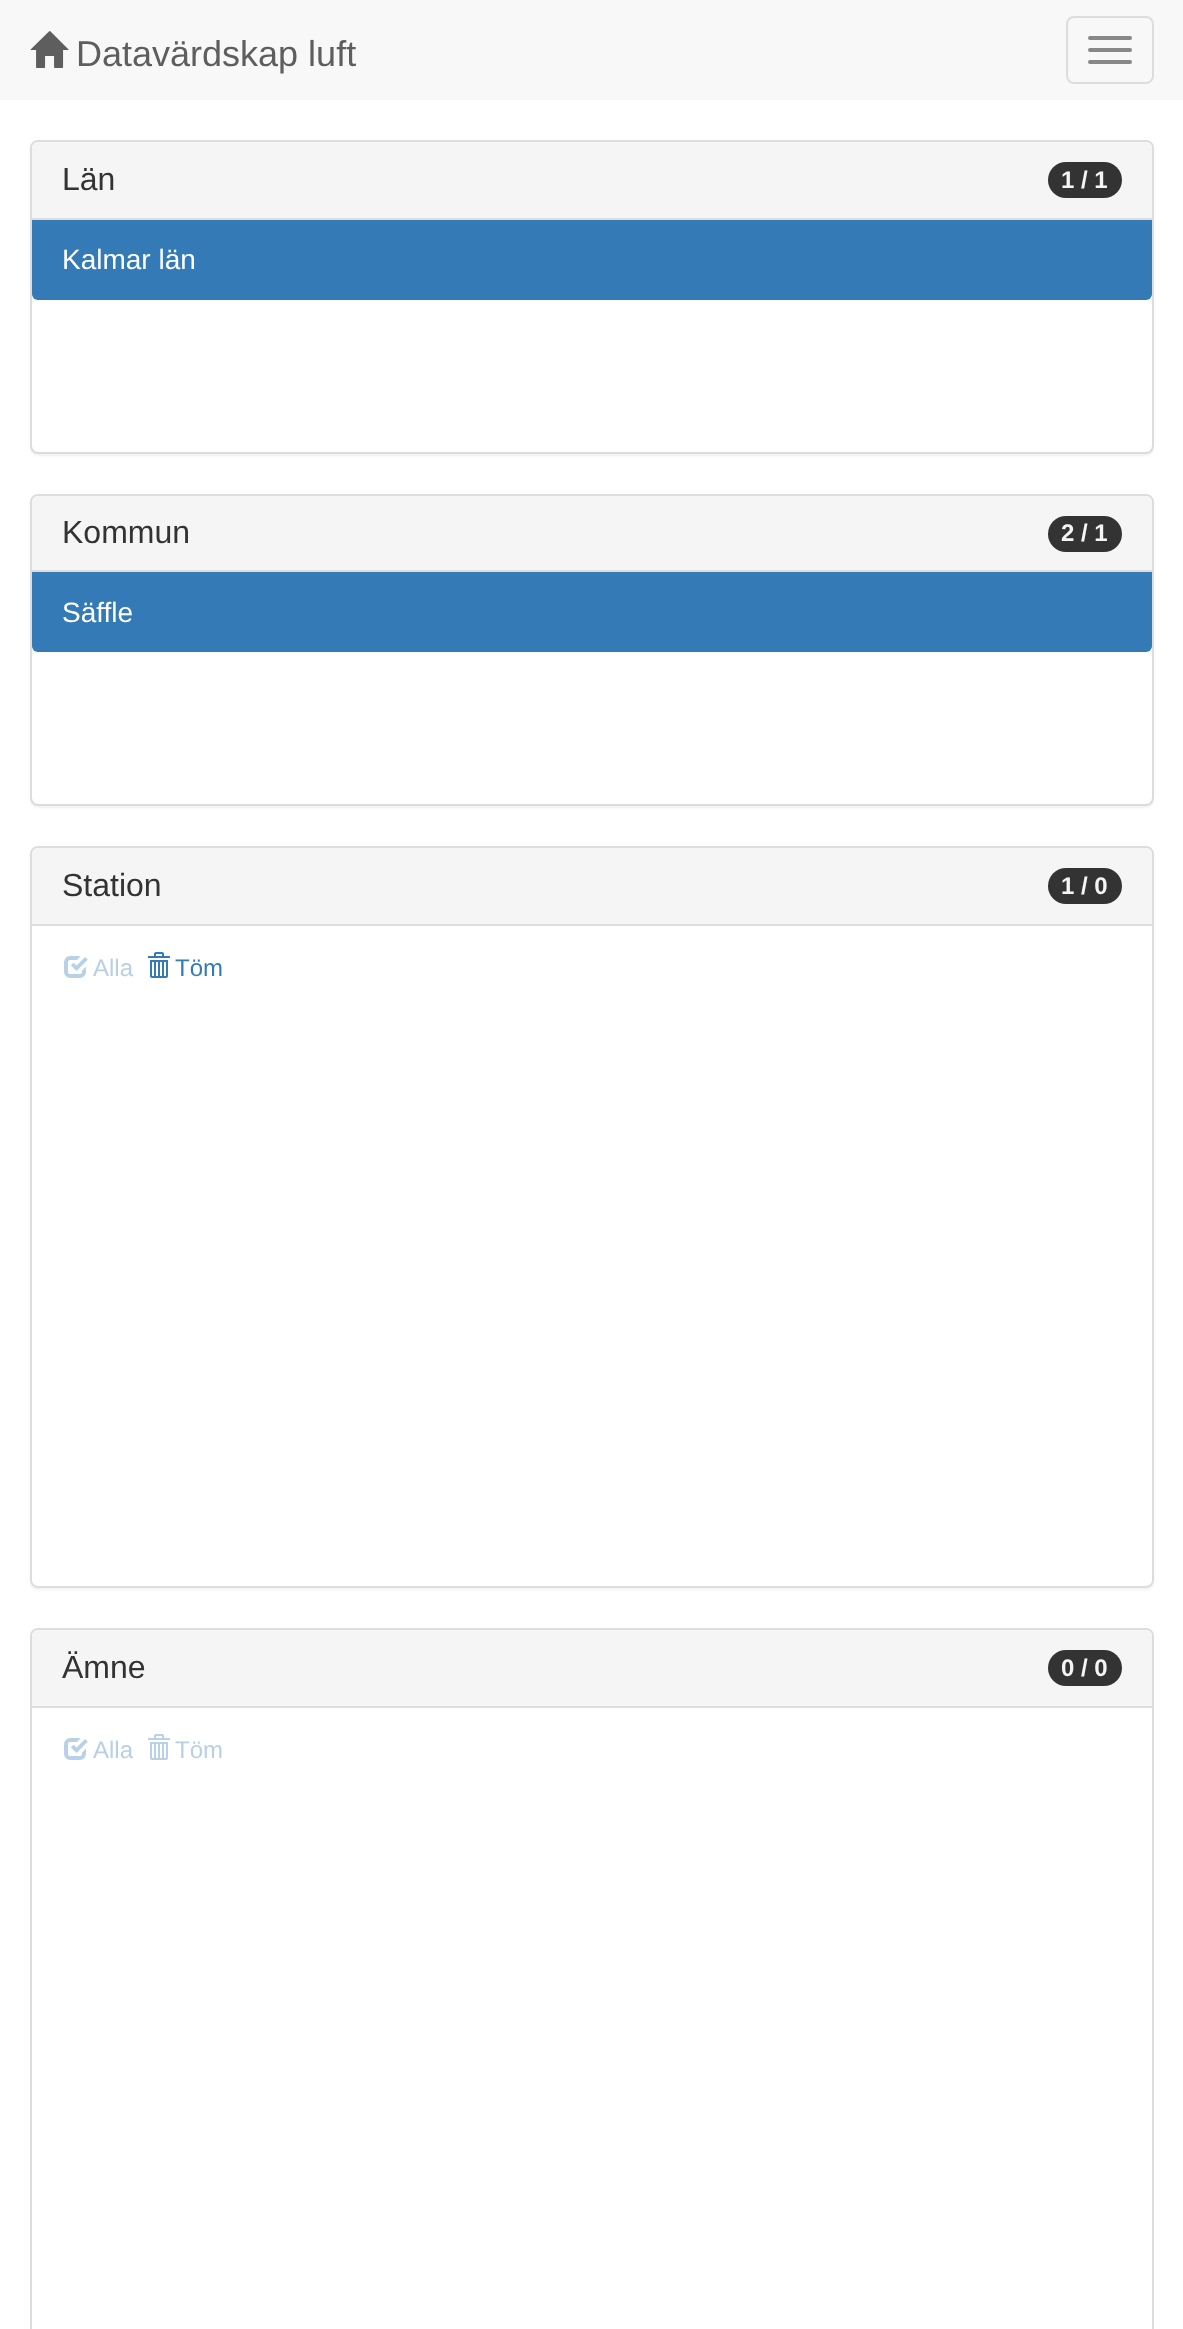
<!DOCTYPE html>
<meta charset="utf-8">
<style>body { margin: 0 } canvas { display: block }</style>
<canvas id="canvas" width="1183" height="2329"></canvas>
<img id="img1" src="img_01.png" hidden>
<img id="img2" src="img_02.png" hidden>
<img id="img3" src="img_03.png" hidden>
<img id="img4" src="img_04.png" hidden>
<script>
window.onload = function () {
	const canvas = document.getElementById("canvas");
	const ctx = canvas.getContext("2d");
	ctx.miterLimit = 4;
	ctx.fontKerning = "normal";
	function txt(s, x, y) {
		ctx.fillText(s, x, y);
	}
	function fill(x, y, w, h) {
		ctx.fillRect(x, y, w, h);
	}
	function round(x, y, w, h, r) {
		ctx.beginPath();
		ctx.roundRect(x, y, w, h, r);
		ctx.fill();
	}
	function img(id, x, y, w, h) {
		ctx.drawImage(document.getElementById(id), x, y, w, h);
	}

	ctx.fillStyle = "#FFFFFF";
	fill(0, 0, 1183, 2329);
	ctx.fillStyle = "#F8F8F8";
	fill(0, 0, 1183, 100);
	img("img1", 30, 31, 39, 37);
	ctx.beginPath();
	ctx.roundRect(1067, 17, 86, 66, 7);
	ctx.strokeStyle = "#DDDDDD";
	ctx.lineWidth = 2;
	ctx.stroke();
	ctx.fillStyle = "#888888";
	round(1088, 36, 44, 4, 2);
	round(1088, 48, 44, 4, 2);
	round(1088, 60, 44, 4, 2);
	ctx.fillStyle = "rgba(0, 0, 0, 0.05)";
	ctx.filter = "blur(1px)";
	ctx.beginPath();
	ctx.roundRect(30, 142, 1124, 314, 8);
	ctx.fill();
	ctx.filter = "none";
	ctx.fillStyle = "#FFFFFF";
	ctx.beginPath();
	ctx.roundRect(31, 141, 1122, 312, 7);
	ctx.fill();
	ctx.stroke();
	ctx.fillStyle = "#F5F5F5";
	ctx.beginPath();
	ctx.roundRect(32, 142, 1120, 78, [6, 6, 0, 0]);
	ctx.fill();
	ctx.fillStyle = "#DDDDDD";
	fill(32, 218, 1120, 2);
	ctx.fillStyle = "#333333";
	round(1048, 162, 74, 36, 18);
	ctx.fillStyle = "#337AB7";
	ctx.beginPath();
	ctx.roundRect(32, 220, 1120, 80, [0, 0, 6, 6]);
	ctx.fill();
	ctx.fillStyle = "rgba(0, 0, 0, 0.05)";
	ctx.filter = "blur(1px)";
	ctx.beginPath();
	ctx.roundRect(30, 496, 1124, 312, 8);
	ctx.fill();
	ctx.filter = "none";
	ctx.fillStyle = "#FFFFFF";
	ctx.beginPath();
	ctx.roundRect(31, 495, 1122, 310, 7);
	ctx.fill();
	ctx.stroke();
	ctx.fillStyle = "#F5F5F5";
	ctx.beginPath();
	ctx.roundRect(32, 496, 1120, 76, [6, 6, 0, 0]);
	ctx.fill();
	ctx.fillStyle = "#DDDDDD";
	fill(32, 570, 1120, 2);
	ctx.fillStyle = "#333333";
	round(1048, 516, 74, 36, 18);
	ctx.fillStyle = "#337AB7";
	ctx.beginPath();
	ctx.roundRect(32, 572, 1120, 80, [0, 0, 6, 6]);
	ctx.fill();
	ctx.fillStyle = "rgba(0, 0, 0, 0.05)";
	ctx.filter = "blur(1px)";
	ctx.beginPath();
	ctx.roundRect(30, 848, 1124, 742, 8);
	ctx.fill();
	ctx.filter = "none";
	ctx.fillStyle = "#FFFFFF";
	ctx.beginPath();
	ctx.roundRect(31, 847, 1122, 740, 7);
	ctx.fill();
	ctx.stroke();
	ctx.fillStyle = "#F5F5F5";
	ctx.beginPath();
	ctx.roundRect(32, 848, 1120, 78, [6, 6, 0, 0]);
	ctx.fill();
	ctx.fillStyle = "#DDDDDD";
	fill(32, 924, 1120, 2);
	ctx.fillStyle = "#333333";
	round(1048, 868, 74, 36, 18);
	img("img2", 64, 956, 24, 22);
	img("img3", 148, 952, 22, 26);
	ctx.beginPath();
	ctx.roundRect(31, 1629, 1122, 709, 7);
	ctx.stroke();
	ctx.fillStyle = "#F5F5F5";
	ctx.beginPath();
	ctx.roundRect(32, 1630, 1120, 78, [6, 6, 0, 0]);
	ctx.fill();
	ctx.fillStyle = "#DDDDDD";
	fill(32, 1706, 1120, 2);
	ctx.fillStyle = "#333333";
	round(1048, 1650, 74, 36, 18);
	img("img2", 64, 1738, 24, 22);
	img("img4", 148, 1734, 22, 26);
	ctx.font = "36px Liberation Sans";
	ctx.fillStyle = "#5E5E5E";
	txt("Datavärdskap luft", 76, 66);
	ctx.font = "32px Liberation Sans";
	ctx.fillStyle = "#333333";
	txt("Län", 62, 190);
	ctx.font = "bold 24px Liberation Sans";
	ctx.fillStyle = "#F5F5F5";
	txt("1 / 1", 1061, 188);
	ctx.font = "28px Liberation Sans";
	ctx.fillStyle = "#FFFFFF";
	txt("Kalmar län", 62, 269);
	ctx.font = "32px Liberation Sans";
	ctx.fillStyle = "#333333";
	txt("Kommun", 62, 543);
	ctx.font = "bold 24px Liberation Sans";
	ctx.fillStyle = "#F5F5F5";
	txt("2 / 1", 1061, 541);
	ctx.font = "28px Liberation Sans";
	ctx.fillStyle = "#FFFFFF";
	txt("Säffle", 62, 622);
	ctx.font = "32px Liberation Sans";
	ctx.fillStyle = "#333333";
	txt("Station", 62, 896);
	ctx.font = "bold 24px Liberation Sans";
	ctx.fillStyle = "#F5F5F5";
	txt("1 / 0", 1061, 894);
	ctx.font = "24px Liberation Sans";
	ctx.fillStyle = "#B8D0E6";
	txt("Alla", 93, 976);
	ctx.fillStyle = "#337AB7";
	txt("Töm", 175, 976);
	ctx.font = "32px Liberation Sans";
	ctx.fillStyle = "#333333";
	txt("Ämne", 62, 1678);
	ctx.font = "bold 24px Liberation Sans";
	ctx.fillStyle = "#F5F5F5";
	txt("0 / 0", 1061, 1676);
	ctx.font = "24px Liberation Sans";
	ctx.fillStyle = "#B8D0E6";
	txt("Alla", 93, 1758);
	txt("Töm", 175, 1758);
};
</script>
